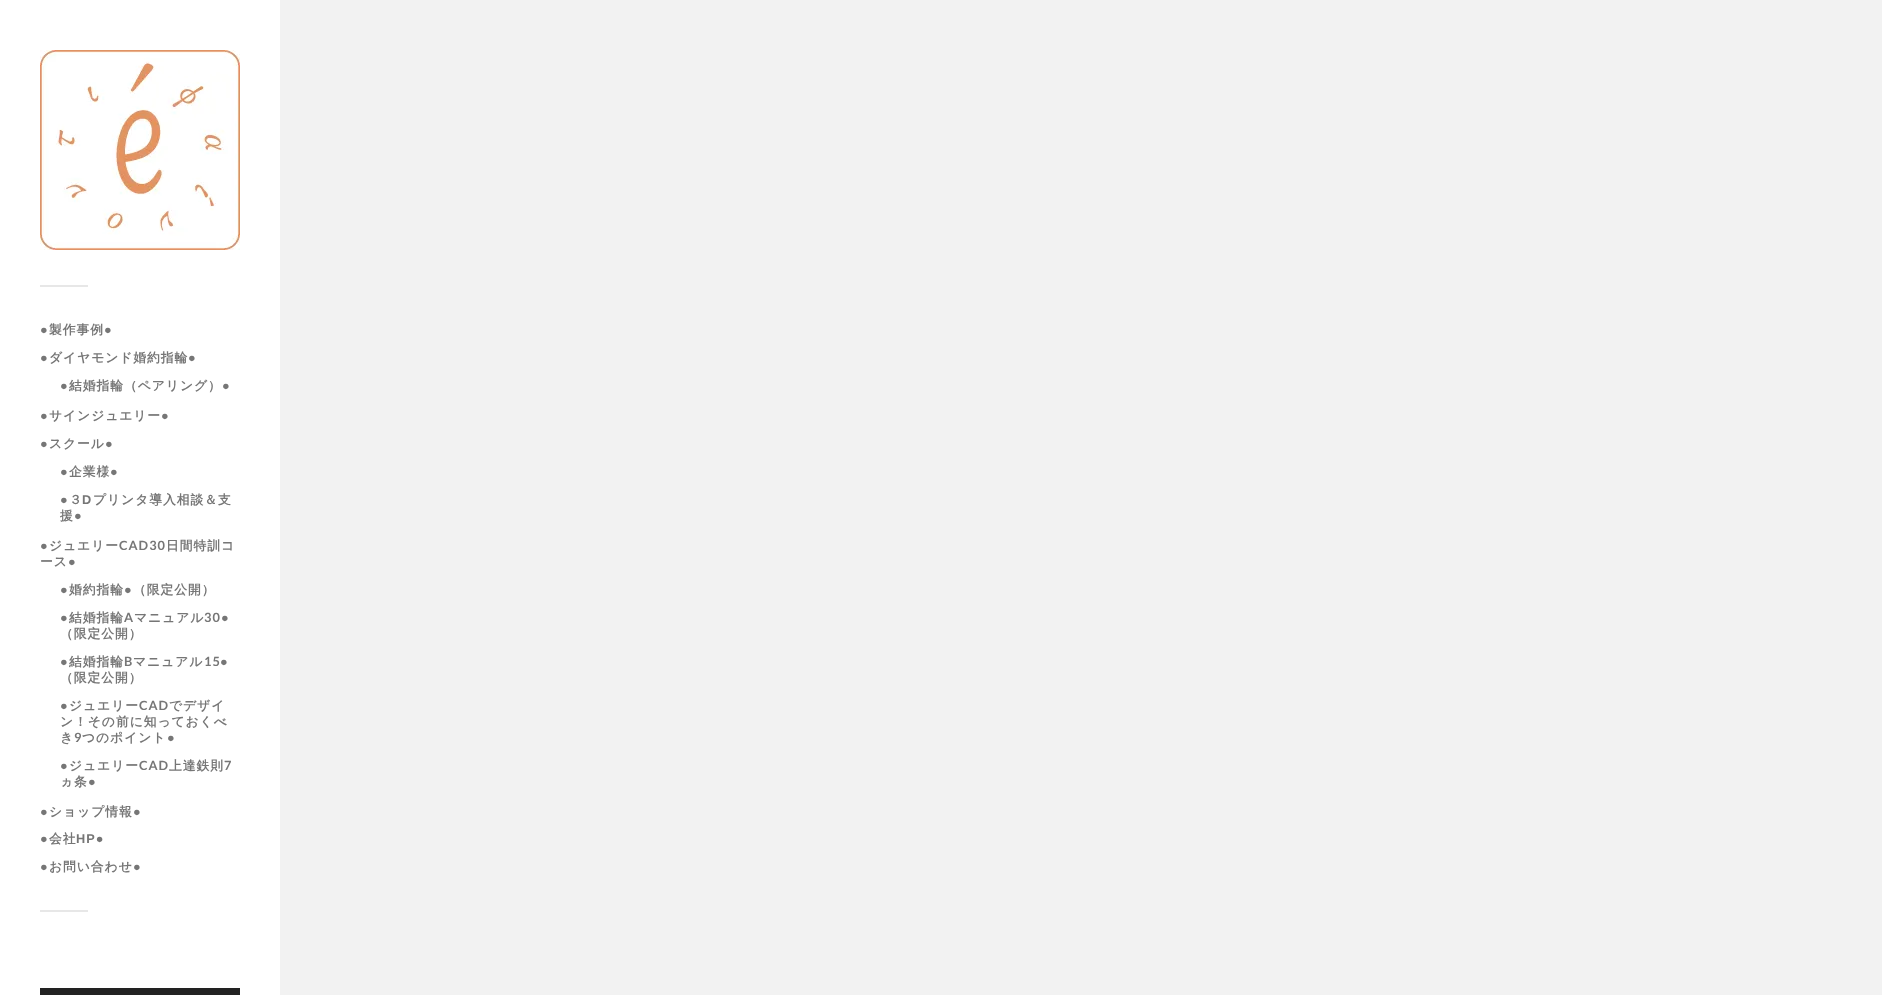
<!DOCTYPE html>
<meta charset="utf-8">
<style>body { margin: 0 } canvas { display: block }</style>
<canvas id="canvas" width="1882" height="995"></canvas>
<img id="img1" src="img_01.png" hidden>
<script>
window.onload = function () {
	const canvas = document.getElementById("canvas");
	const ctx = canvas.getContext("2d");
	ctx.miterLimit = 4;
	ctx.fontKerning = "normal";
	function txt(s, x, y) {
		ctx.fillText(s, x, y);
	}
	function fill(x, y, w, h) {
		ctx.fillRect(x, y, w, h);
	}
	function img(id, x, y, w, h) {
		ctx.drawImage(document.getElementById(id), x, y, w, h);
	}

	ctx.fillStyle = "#F2F2F2";
	fill(0, 0, 1882, 995);
	ctx.fillStyle = "#FFFFFF";
	fill(0, 0, 280, 995);
	img("img1", 40, 50, 200, 200);
	ctx.fillStyle = "#E7E7E7";
	fill(40, 285, 48, 2);
	fill(40, 910, 48, 2);
	ctx.fillStyle = "#222222";
	fill(40, 988, 200, 7);
	ctx.letterSpacing = "1px";
	ctx.font = "bold 12.75px Liberation Sans";
	ctx.fillStyle = "#767676";
	txt("●", 40, 334);
	ctx.font = "bold 12.75px WenQuanYi Zen Hei";
	txt("製作事例", 49, 334);
	ctx.font = "bold 12.75px Liberation Sans";
	txt("●", 104, 334);
	txt("●", 40, 362);
	ctx.font = "bold 12.75px WenQuanYi Zen Hei";
	txt("ダイヤモンド婚約指輪", 49, 362);
	ctx.font = "bold 12.75px Liberation Sans";
	txt("●", 188, 362);
	txt("●", 60, 390);
	ctx.font = "bold 12.75px WenQuanYi Zen Hei";
	txt("結婚指輪（ペアリング）", 69, 390);
	ctx.font = "bold 12.75px Liberation Sans";
	txt("●", 222, 390);
	txt("●", 40, 420);
	ctx.font = "bold 12.75px WenQuanYi Zen Hei";
	txt("サインジュエリー", 49, 420);
	ctx.font = "bold 12.75px Liberation Sans";
	txt("●", 161, 420);
	txt("●", 40, 448);
	ctx.font = "bold 12.75px WenQuanYi Zen Hei";
	txt("スクール", 49, 448);
	ctx.font = "bold 12.75px Liberation Sans";
	txt("●", 105, 448);
	txt("●", 60, 476);
	ctx.font = "bold 12.75px WenQuanYi Zen Hei";
	txt("企業様", 69, 476);
	ctx.font = "bold 12.75px Liberation Sans";
	txt("●", 110, 476);
	txt("●", 60, 504);
	ctx.font = "bold 12.75px WenQuanYi Zen Hei";
	txt("３", 69, 504);
	ctx.font = "bold 12.75px Liberation Sans";
	txt("D", 82, 504);
	ctx.font = "bold 12.75px WenQuanYi Zen Hei";
	txt("プリンタ導入相談＆支", 93, 504);
	txt("援", 60, 520);
	ctx.font = "bold 12.75px Liberation Sans";
	txt("●", 74, 520);
	txt("●", 40, 550);
	ctx.font = "bold 12.75px WenQuanYi Zen Hei";
	txt("ジュエリー", 49, 550);
	ctx.font = "bold 12.75px Lato";
	txt("CAD30", 119, 550);
	ctx.font = "bold 12.75px WenQuanYi Zen Hei";
	txt("日間特訓コ", 166, 550);
	txt("ース", 40, 566);
	ctx.font = "bold 12.75px Liberation Sans";
	txt("●", 68, 566);
	txt("●", 60, 594);
	ctx.font = "bold 12.75px WenQuanYi Zen Hei";
	txt("婚約指輪", 69, 594);
	ctx.font = "bold 12.75px Liberation Sans";
	txt("●", 124, 594);
	ctx.font = "bold 12.75px WenQuanYi Zen Hei";
	txt("（限定公開）", 133, 594);
	ctx.font = "bold 12.75px Liberation Sans";
	txt("●", 60, 622);
	ctx.font = "bold 12.75px WenQuanYi Zen Hei";
	txt("結婚指輪", 69, 622);
	ctx.font = "bold 12.75px Lato";
	txt("A", 124, 622);
	ctx.font = "bold 12.75px WenQuanYi Zen Hei";
	txt("マニュアル", 134, 622);
	ctx.font = "bold 12.75px Lato";
	txt("30", 204, 622);
	ctx.font = "bold 12.75px Liberation Sans";
	txt("●", 221, 622);
	ctx.font = "bold 12.75px WenQuanYi Zen Hei";
	txt("（限定公開）", 60, 638);
	ctx.font = "bold 12.75px Liberation Sans";
	txt("●", 60, 666);
	ctx.font = "bold 12.75px WenQuanYi Zen Hei";
	txt("結婚指輪", 69, 666);
	ctx.font = "bold 12.75px Lato";
	txt("B", 124, 666);
	ctx.font = "bold 12.75px WenQuanYi Zen Hei";
	txt("マニュアル", 133, 666);
	ctx.font = "bold 12.75px Lato";
	txt("15", 204, 666);
	ctx.font = "bold 12.75px Liberation Sans";
	txt("●", 220, 666);
	ctx.font = "bold 12.75px WenQuanYi Zen Hei";
	txt("（限定公開）", 60, 682);
	ctx.font = "bold 12.75px Liberation Sans";
	txt("●", 60, 710);
	ctx.font = "bold 12.75px WenQuanYi Zen Hei";
	txt("ジュエリー", 69, 710);
	ctx.font = "bold 12.75px Lato";
	txt("CAD", 139, 710);
	ctx.font = "bold 12.75px WenQuanYi Zen Hei";
	txt("でデザイ", 169, 710);
	txt("ン！その前に知っておくべ", 60, 726);
	txt("き", 60, 742);
	ctx.font = "bold 12.75px Lato";
	txt("9", 74, 742);
	ctx.font = "bold 12.75px WenQuanYi Zen Hei";
	txt("つのポイント", 82, 742);
	ctx.font = "bold 12.75px Liberation Sans";
	txt("●", 167, 742);
	txt("●", 60, 770);
	ctx.font = "bold 12.75px WenQuanYi Zen Hei";
	txt("ジュエリー", 69, 770);
	ctx.font = "bold 12.75px Lato";
	txt("CAD", 139, 770);
	ctx.font = "bold 12.75px WenQuanYi Zen Hei";
	txt("上達鉄則", 169, 770);
	ctx.font = "bold 12.75px Lato";
	txt("7", 224, 770);
	ctx.font = "bold 12.75px WenQuanYi Zen Hei";
	txt("ヵ条", 60, 786);
	ctx.font = "bold 12.75px Liberation Sans";
	txt("●", 88, 786);
	txt("●", 40, 816);
	ctx.font = "bold 12.75px WenQuanYi Zen Hei";
	txt("ショップ情報", 49, 816);
	ctx.font = "bold 12.75px Liberation Sans";
	txt("●", 133, 816);
	txt("●", 40, 843);
	ctx.font = "bold 12.75px WenQuanYi Zen Hei";
	txt("会社", 49, 843);
	ctx.font = "bold 12.75px Liberation Sans";
	txt("HP●", 76, 843);
	txt("●", 40, 871);
	ctx.font = "bold 12.75px WenQuanYi Zen Hei";
	txt("お問い合わせ", 49, 871);
	ctx.font = "bold 12.75px Liberation Sans";
	txt("●", 133, 871);
};
</script>
